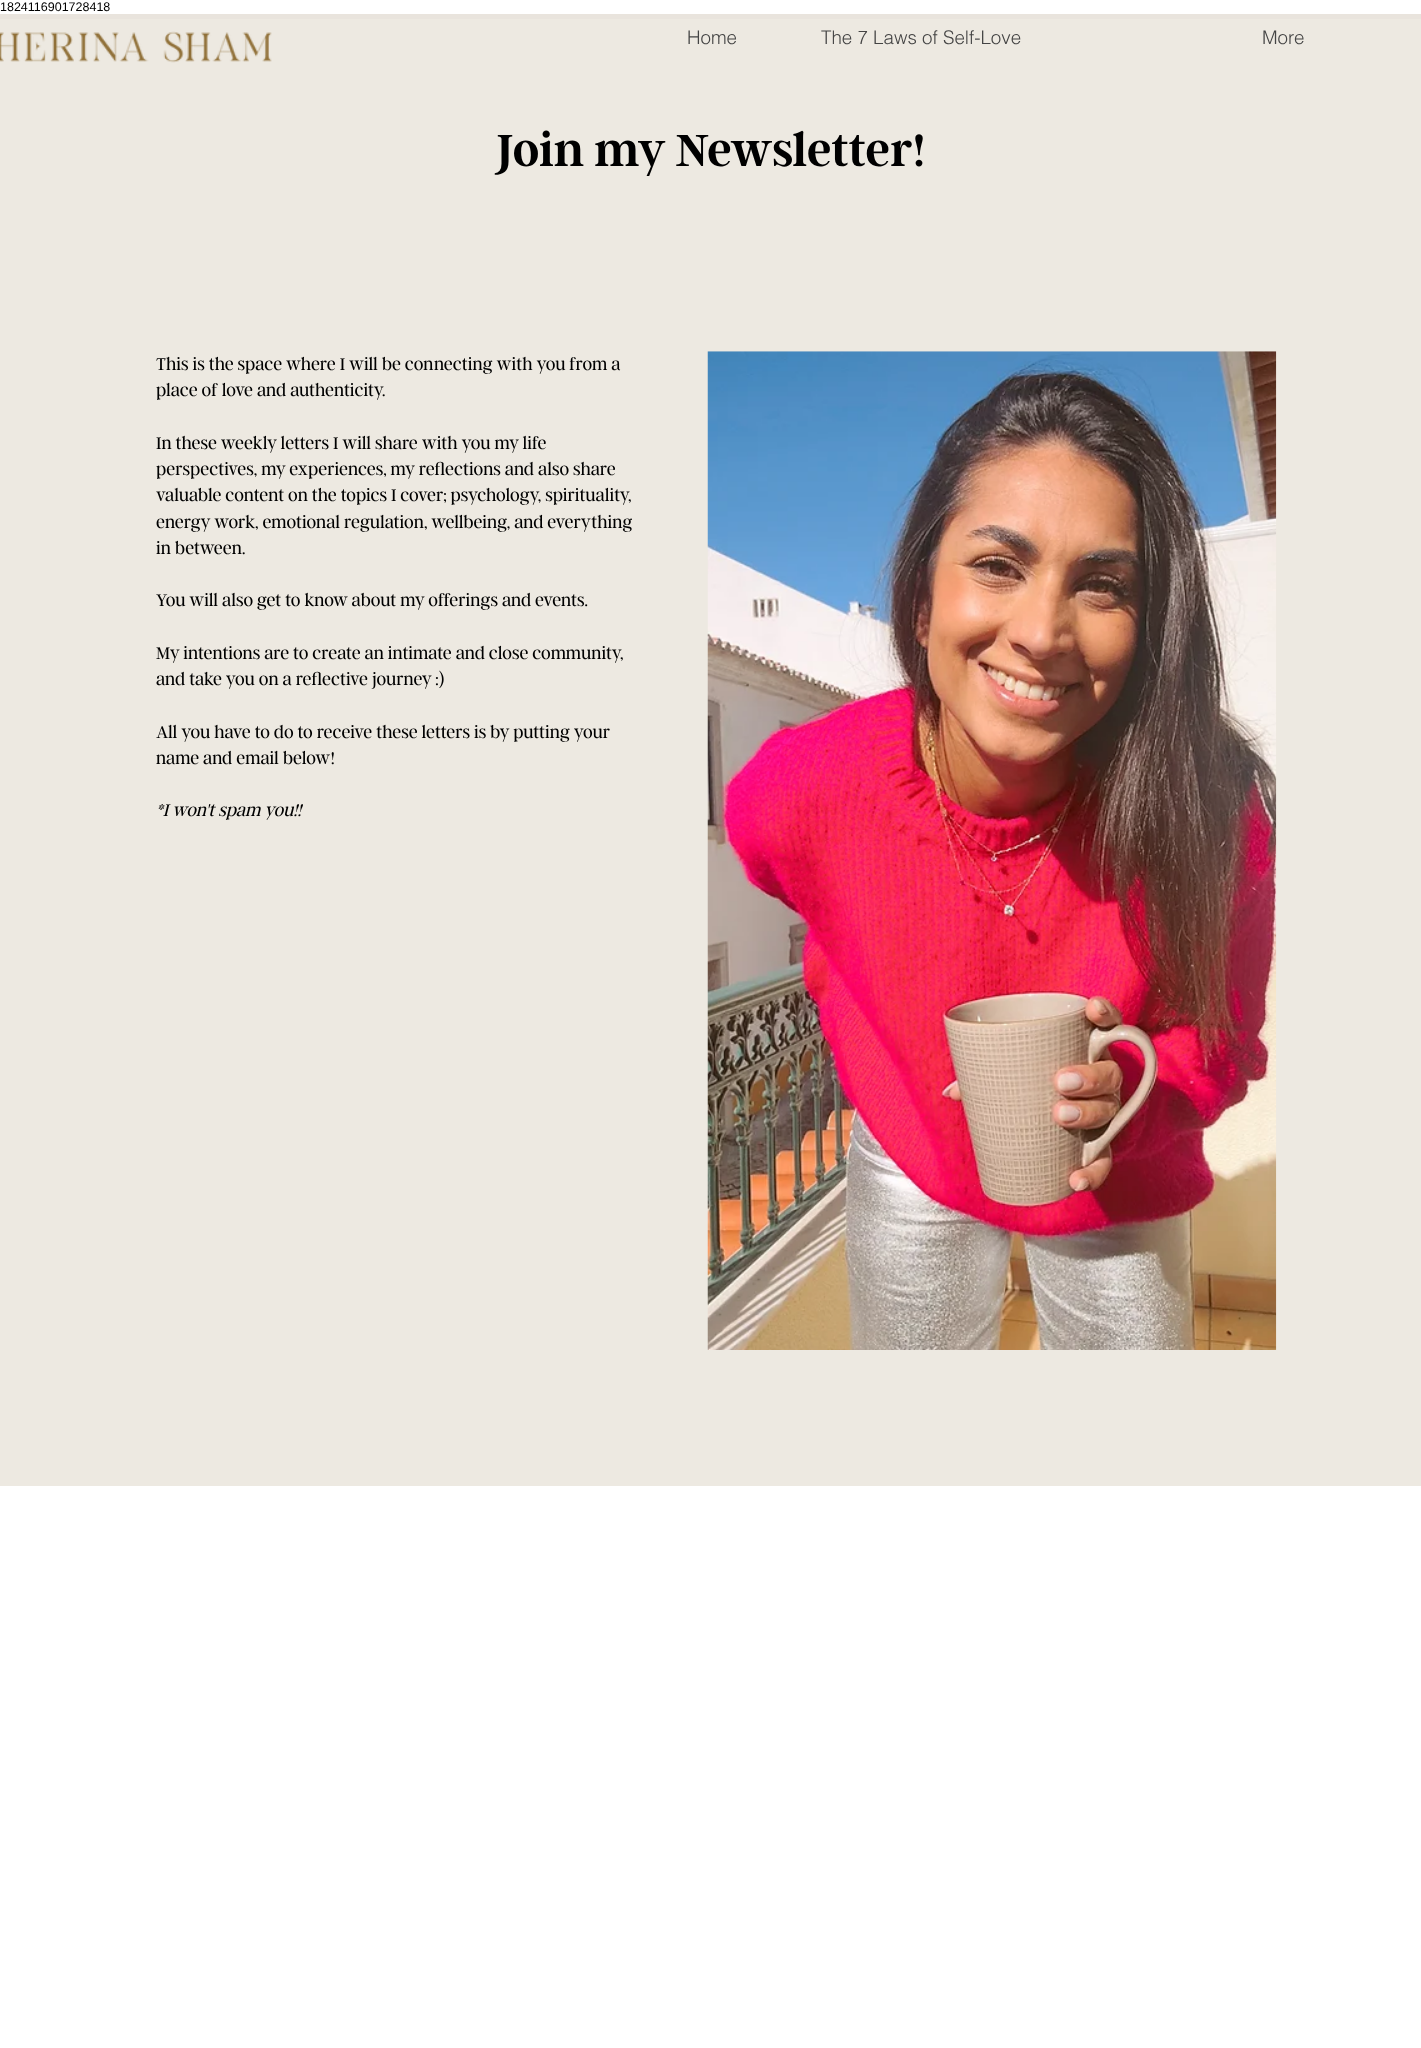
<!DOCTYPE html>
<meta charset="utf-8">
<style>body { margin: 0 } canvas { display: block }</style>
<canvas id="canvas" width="1421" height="2048"></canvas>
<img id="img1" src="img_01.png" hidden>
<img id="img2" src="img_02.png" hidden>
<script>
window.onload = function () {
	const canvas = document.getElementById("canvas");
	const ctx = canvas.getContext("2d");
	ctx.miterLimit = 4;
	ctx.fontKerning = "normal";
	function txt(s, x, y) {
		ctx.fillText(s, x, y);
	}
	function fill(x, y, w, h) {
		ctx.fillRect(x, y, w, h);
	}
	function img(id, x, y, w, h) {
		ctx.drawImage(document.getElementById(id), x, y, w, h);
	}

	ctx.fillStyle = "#FFFFFF";
	fill(0, 0, 1421, 2048);
	ctx.fillStyle = "#E9E4DD";
	fill(0, 14, 1421, 5);
	ctx.fillStyle = "#EDE9E1";
	fill(0, 19, 1421, 1467);
	img("img1", 0, 31, 272, 32);
	img("img2", 707, 351, 570, 999);
	ctx.font = "12.5px Liberation Sans";
	ctx.fillStyle = "#000000";
	txt("1824116901728418", 0, 11);
	ctx.font = "300 18.75px helvetica";
	ctx.fillStyle = "#444444";
	txt("Home", 687, 44);
	txt("The 7 Laws of Self-Love", 821, 44);
	txt("More", 1262, 44);
	ctx.font = "600 50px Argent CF";
	ctx.fillStyle = "#000000";
	txt("Join my Newsletter!", 496, 166);
	ctx.font = "300 18.75px Argent CF";
	txt("This is the space where I will be connecting with you from a", 156, 370);
	txt("place of love and authenticity.", 156, 396);
	txt("In these weekly letters I will share with you my life", 156, 449);
	txt("perspectives, my experiences, my reflections and also share", 156, 475);
	txt("valuable content on the topics I cover; psychology, spirituality,", 156, 501);
	txt("energy work, emotional regulation, wellbeing, and everything", 156, 528);
	txt("in between.", 156, 554);
	txt("You will also get to know about my offerings and events.", 156, 606);
	txt("My intentions are to create an intimate and close community,", 156, 659);
	txt("and take you on a reflective journey :)", 156, 685);
	txt("All you have to do to receive these letters is by putting your", 156, 738);
	txt("name and email below!", 156, 764);
	ctx.font = "italic 300 18.75px Argent CF";
	txt("*I won't spam you!!", 156, 816);
};
</script>
